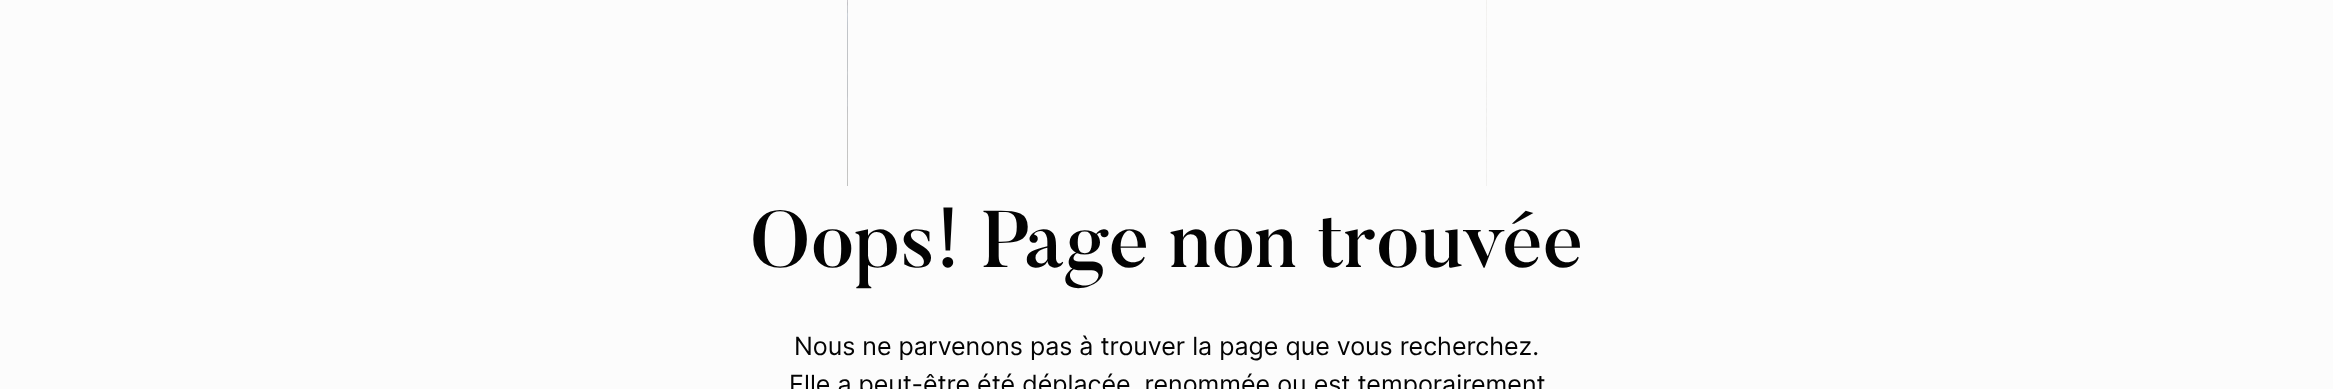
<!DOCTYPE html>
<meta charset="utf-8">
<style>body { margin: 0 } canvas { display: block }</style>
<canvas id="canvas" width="2333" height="389"></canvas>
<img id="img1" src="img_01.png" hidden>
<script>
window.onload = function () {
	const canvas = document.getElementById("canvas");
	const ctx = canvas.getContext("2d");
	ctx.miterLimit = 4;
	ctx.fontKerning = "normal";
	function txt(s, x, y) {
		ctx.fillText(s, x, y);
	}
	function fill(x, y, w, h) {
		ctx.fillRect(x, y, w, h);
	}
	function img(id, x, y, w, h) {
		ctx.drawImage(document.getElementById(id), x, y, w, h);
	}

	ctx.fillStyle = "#FCFCFC";
	fill(0, 0, 2333, 389);
	img("img1", 847, 0, 640, 186);
	fill(848, 0, 638, 186);
	ctx.font = "500 80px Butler";
	ctx.fillStyle = "#030303";
	txt("Oops! Page non trouvée", 750, 267);
	ctx.font = "25px Inter";
	txt("Nous ne parvenons pas à trouver la page que vous recherchez.", 794, 355);
	txt("Elle a peut-être été déplacée, renommée ou est temporairement", 789, 393);
};
</script>
